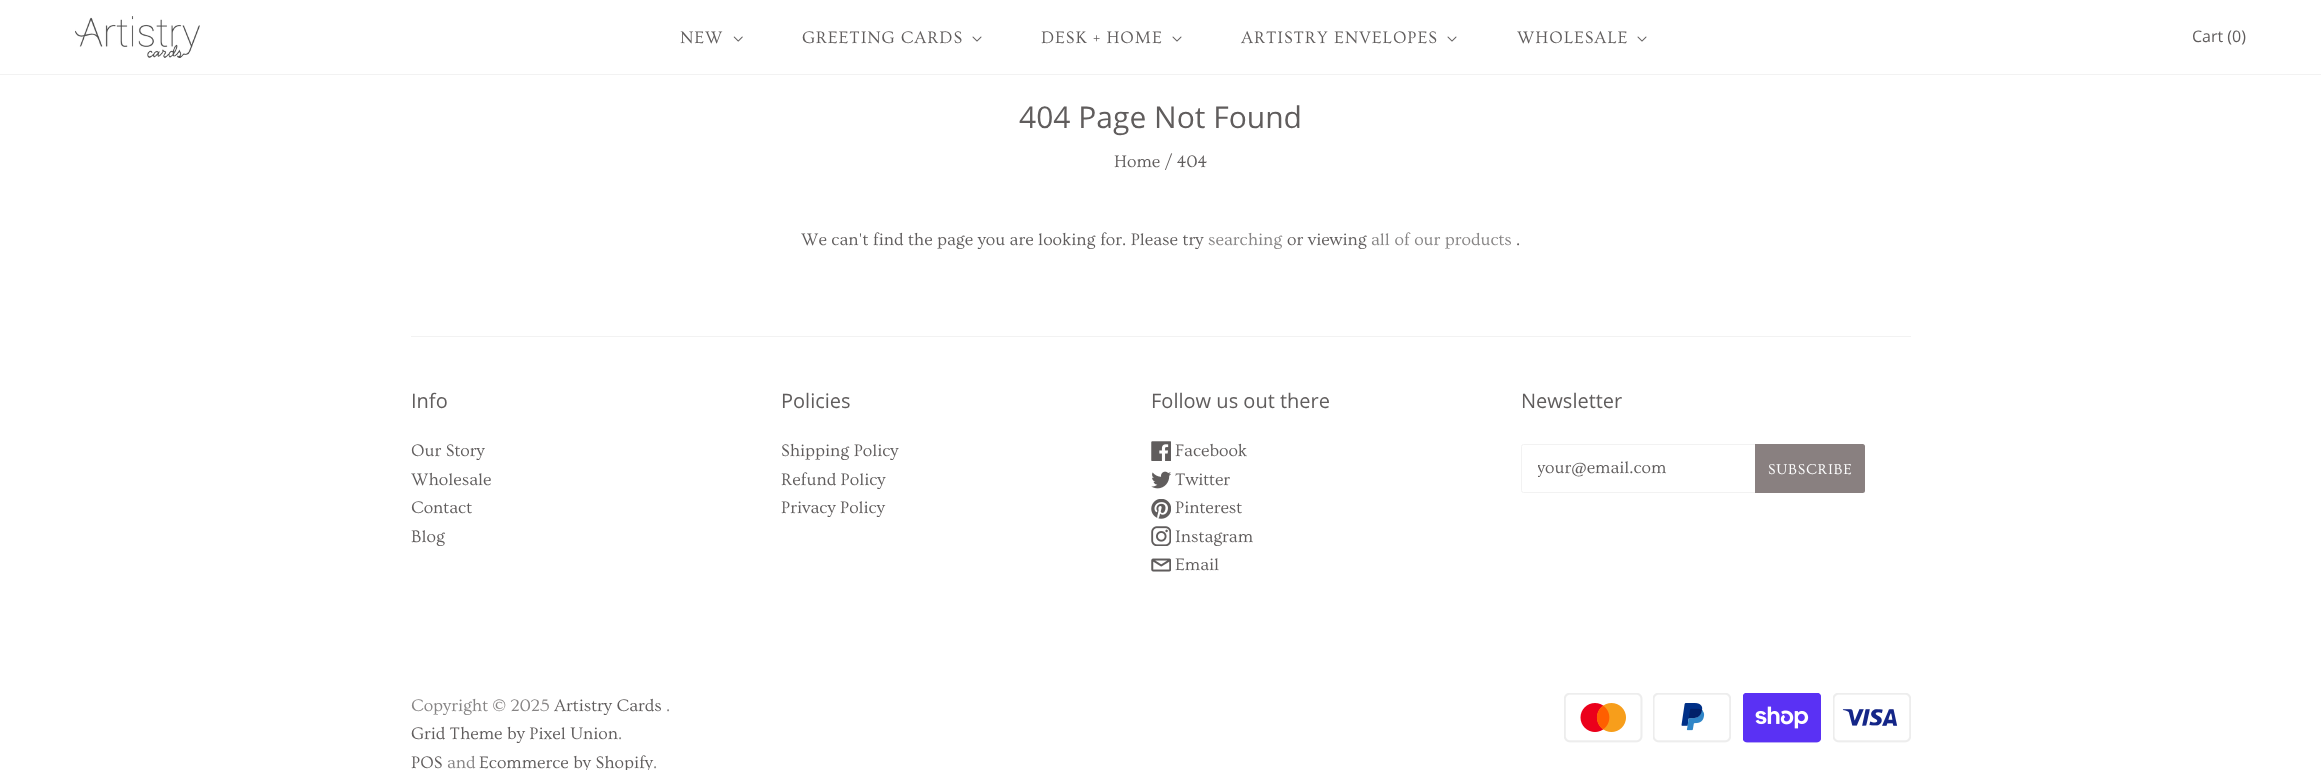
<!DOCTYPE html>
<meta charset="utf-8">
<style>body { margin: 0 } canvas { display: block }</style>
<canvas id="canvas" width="2321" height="770"></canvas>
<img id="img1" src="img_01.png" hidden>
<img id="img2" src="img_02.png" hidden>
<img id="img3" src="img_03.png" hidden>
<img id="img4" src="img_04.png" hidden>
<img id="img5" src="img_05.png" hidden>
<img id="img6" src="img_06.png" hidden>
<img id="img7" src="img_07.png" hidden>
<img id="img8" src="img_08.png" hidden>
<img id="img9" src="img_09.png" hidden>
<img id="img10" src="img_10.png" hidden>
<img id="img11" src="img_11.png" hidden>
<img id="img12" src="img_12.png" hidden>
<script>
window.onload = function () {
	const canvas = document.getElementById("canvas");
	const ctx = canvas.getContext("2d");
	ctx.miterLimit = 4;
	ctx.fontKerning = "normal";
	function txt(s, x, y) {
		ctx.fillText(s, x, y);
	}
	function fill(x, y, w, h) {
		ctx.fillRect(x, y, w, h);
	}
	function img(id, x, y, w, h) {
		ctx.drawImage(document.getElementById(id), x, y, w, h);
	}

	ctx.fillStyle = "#FFFFFF";
	fill(0, 0, 2321, 770);
	ctx.fillStyle = "#F2F2F2";
	fill(0, 74, 2321, 1);
	img("img1", 75, 16, 125, 42);
	img("img2", 733, 36, 10, 6);
	img("img3", 972, 36, 10, 6);
	img("img3", 1172, 36, 10, 6);
	img("img3", 1447, 36, 10, 6);
	img("img3", 1637, 36, 10, 6);
	fill(411, 336, 1500, 1);
	img("img4", 1151, 441, 20, 20);
	img("img5", 1151, 471, 20, 18);
	img("img6", 1151, 499, 20, 20);
	img("img7", 1151, 526, 20, 20);
	img("img8", 1151, 558, 20, 14);
	ctx.beginPath();
	ctx.roundRect(1521.5, 444.5, 343, 48, 2);
	ctx.strokeStyle = "#F2F2F2";
	ctx.stroke();
	ctx.fillStyle = "#898080";
	ctx.beginPath();
	ctx.roundRect(1755, 444, 110, 49, [0, 2.5, 2.5, 0]);
	ctx.fill();
	img("img9", 1564, 693, 79, 50);
	img("img10", 1653, 693, 78, 50);
	img("img11", 1743, 693, 78, 50);
	img("img12", 1833, 693, 78, 50);
	ctx.letterSpacing = "0.9px";
	ctx.font = "17.5px Ovo";
	ctx.fillStyle = "#605D5D";
	txt("NEW", 680, 43);
	txt("GREETING CARDS", 802, 43);
	txt("DESK + HOME", 1041, 43);
	txt("ARTISTRY ENVELOPES", 1241, 43);
	txt("WHOLESALE", 1517, 43);
	ctx.letterSpacing = "0px";
	ctx.font = "16px Open Sans";
	txt("Cart (0)", 2192, 42);
	ctx.font = "30px Open Sans";
	txt("404 Page Not Found", 1019, 128);
	ctx.font = "17.5px Ovo";
	txt("Home / 404", 1114, 167);
	txt("We can't find the page you are looking for. Please try", 801, 245);
	ctx.fillStyle = "#878585";
	txt("searching", 1208, 245);
	ctx.fillStyle = "#605D5D";
	txt("or viewing", 1287, 245);
	ctx.fillStyle = "#878585";
	txt("all of our products", 1371, 245);
	ctx.fillStyle = "#605D5D";
	txt(".", 1516, 245);
	ctx.font = "20px Open Sans";
	txt("Info", 411, 408);
	ctx.font = "17.5px Ovo";
	txt("Our Story", 411, 456);
	txt("Wholesale", 411, 485);
	txt("Contact", 411, 513);
	txt("Blog", 411, 542);
	ctx.font = "20px Open Sans";
	txt("Policies", 781, 408);
	ctx.font = "17.5px Ovo";
	txt("Shipping Policy", 781, 456);
	txt("Refund Policy", 781, 485);
	txt("Privacy Policy", 781, 513);
	ctx.font = "20px Open Sans";
	txt("Follow us out there", 1151, 408);
	ctx.font = "17.5px Ovo";
	txt("Facebook", 1175, 456);
	txt("Twitter", 1175, 485);
	txt("Pinterest", 1175, 513);
	txt("Instagram", 1175, 542);
	txt("Email", 1175, 570);
	ctx.font = "20px Open Sans";
	txt("Newsletter", 1521, 408);
	ctx.save();
	ctx.beginPath();
	ctx.rect(1538, 459, 200, 20);
	ctx.clip();
	ctx.font = "17.5px Ovo";
	txt("your@email.com", 1537, 473);
	ctx.restore();
	ctx.letterSpacing = "0.75px";
	ctx.font = "15px Ovo";
	ctx.fillStyle = "#FFFFFF";
	txt("SUBSCRIBE", 1768, 474);
	ctx.letterSpacing = "0px";
	ctx.font = "17.5px Ovo";
	ctx.fillStyle = "#878585";
	txt("Copyright © 2025", 411, 711);
	ctx.fillStyle = "#605D5D";
	txt("Artistry Cards", 554, 711);
	ctx.fillStyle = "#878585";
	txt(".", 666, 711);
	ctx.fillStyle = "#605D5D";
	txt("Grid Theme by Pixel Union", 411, 739);
	ctx.fillStyle = "#878585";
	txt(".", 618, 739);
	ctx.fillStyle = "#605D5D";
	txt("POS", 411, 768);
	ctx.fillStyle = "#878585";
	txt("and", 447, 768);
	ctx.fillStyle = "#605D5D";
	txt("Ecommerce by Shopify", 479, 768);
	ctx.fillStyle = "#878585";
	txt(".", 653, 768);
};
</script>
